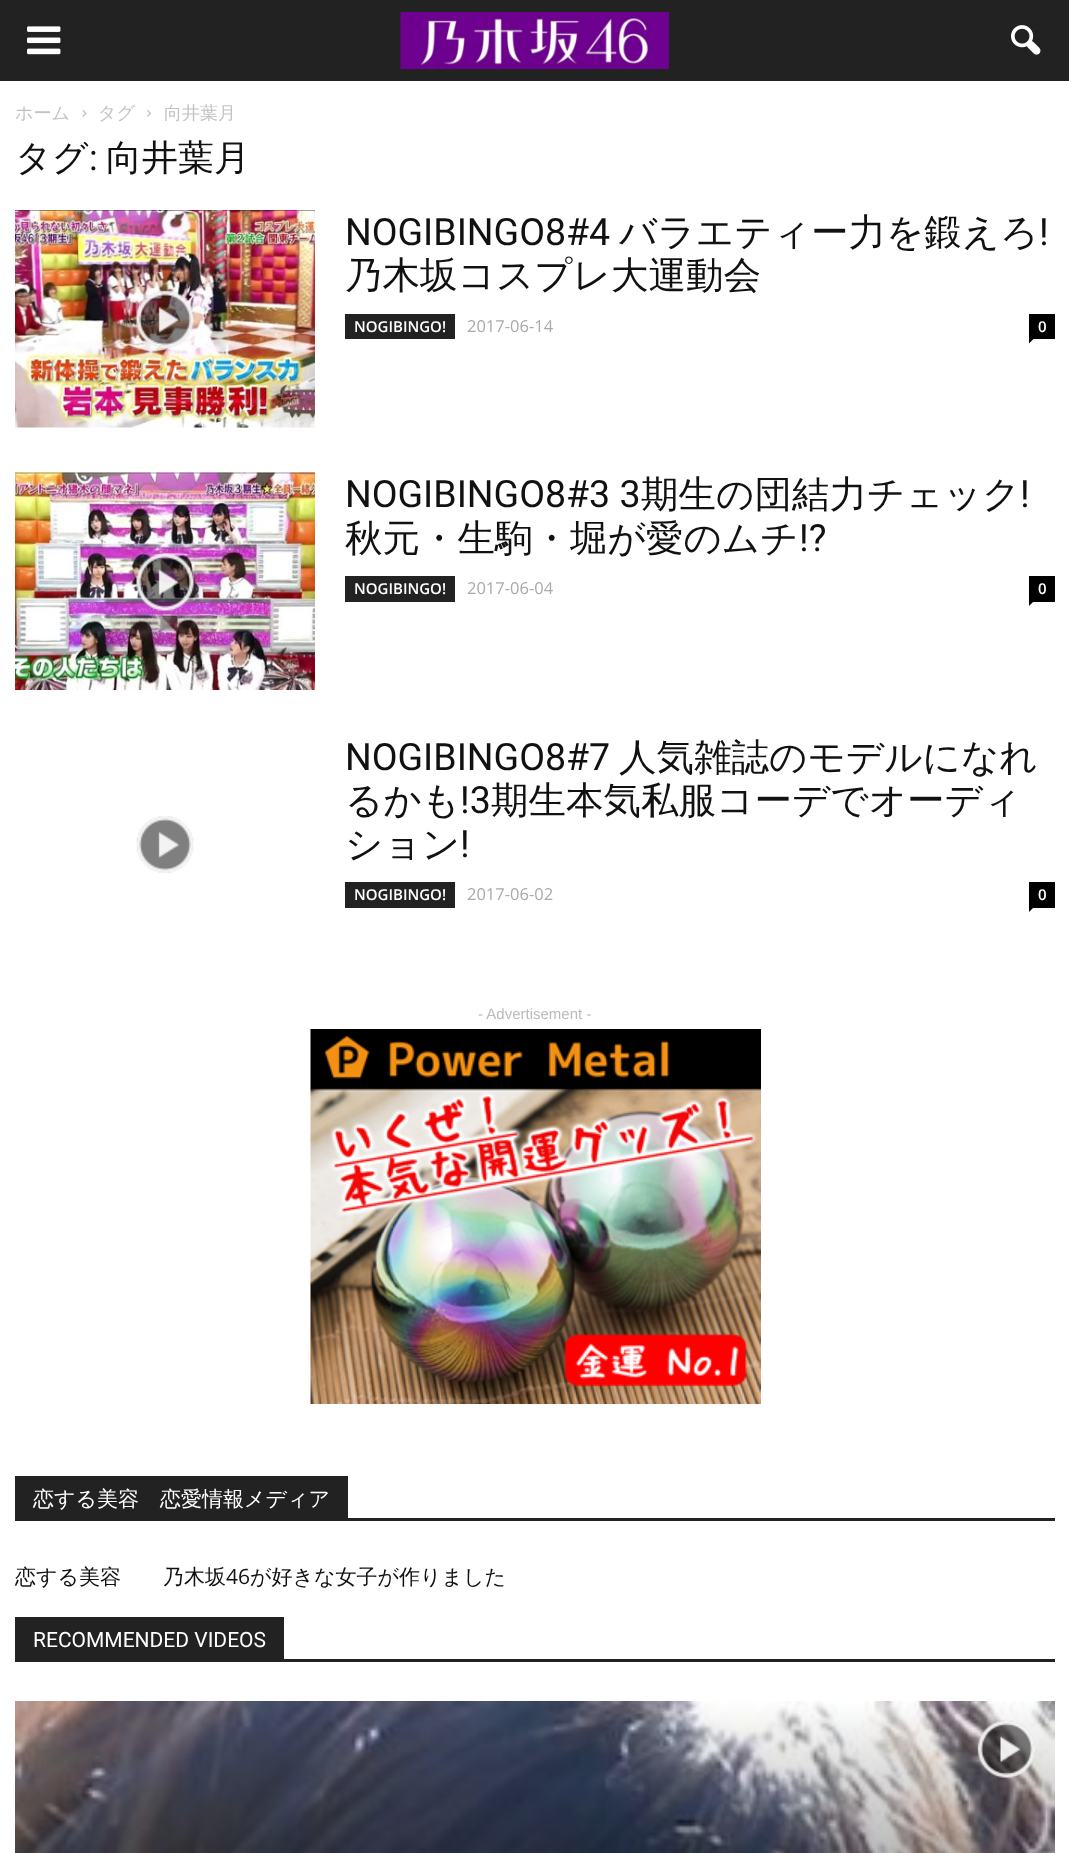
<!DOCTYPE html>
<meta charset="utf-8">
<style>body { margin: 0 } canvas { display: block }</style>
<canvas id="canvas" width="1069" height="1853"></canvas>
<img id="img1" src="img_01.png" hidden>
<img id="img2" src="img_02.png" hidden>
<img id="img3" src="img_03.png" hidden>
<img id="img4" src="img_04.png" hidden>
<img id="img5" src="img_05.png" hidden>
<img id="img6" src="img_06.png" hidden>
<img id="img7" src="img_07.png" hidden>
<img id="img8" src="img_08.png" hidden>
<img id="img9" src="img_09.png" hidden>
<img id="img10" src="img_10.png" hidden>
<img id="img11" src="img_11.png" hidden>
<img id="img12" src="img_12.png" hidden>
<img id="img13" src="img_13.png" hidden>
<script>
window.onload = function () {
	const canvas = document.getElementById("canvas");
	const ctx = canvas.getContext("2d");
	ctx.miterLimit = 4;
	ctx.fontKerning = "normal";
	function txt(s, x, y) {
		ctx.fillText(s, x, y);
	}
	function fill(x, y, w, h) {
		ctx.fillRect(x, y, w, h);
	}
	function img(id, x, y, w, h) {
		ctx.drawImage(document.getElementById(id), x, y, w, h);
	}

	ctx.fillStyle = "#FFFFFF";
	fill(0, 0, 1069, 1853);
	ctx.fillStyle = "#222222";
	fill(0, 0, 1069, 81);
	img("img1", 27, 26, 34, 29);
	img("img2", 400, 12, 269, 57);
	img("img3", 1011, 25, 30, 30);
	img("img4", 82, 110, 5, 7);
	img("img5", 147, 110, 4, 7);
	img("img6", 15, 210, 300, 218);
	img("img7", 136, 290, 58, 59);
	fill(345, 314, 110, 25);
	ctx.fillStyle = "#000000";
	fill(1029, 314, 26, 25);
	ctx.beginPath();
	ctx.moveTo(1029, 339);
	ctx.lineTo(1033.5, 339);
	ctx.lineTo(1029, 343.5);
	ctx.closePath();
	ctx.fill();
	img("img8", 15, 472, 300, 218);
	img("img9", 136, 553, 58, 58);
	ctx.fillStyle = "#222222";
	fill(345, 576, 110, 26);
	ctx.fillStyle = "#000000";
	fill(1029, 576, 26, 26);
	ctx.beginPath();
	ctx.moveTo(1029, 601.5);
	ctx.lineTo(1033.5, 601.5);
	ctx.lineTo(1029, 606);
	ctx.closePath();
	ctx.fill();
	img("img10", 136, 816, 58, 58);
	ctx.fillStyle = "#222222";
	fill(345, 882, 110, 26);
	ctx.fillStyle = "#000000";
	fill(1029, 882, 26, 26);
	ctx.beginPath();
	ctx.moveTo(1029, 907.5);
	ctx.lineTo(1033.5, 907.5);
	ctx.lineTo(1029, 912);
	ctx.closePath();
	ctx.fill();
	img("img11", 310, 1029, 451, 375);
	ctx.fillStyle = "#222222";
	fill(15, 1518, 1040, 3);
	fill(15, 1476, 333, 42);
	fill(15, 1659, 1040, 3);
	fill(15, 1617, 269, 42);
	img("img12", 15, 1701, 1040, 152);
	img("img13", 977, 1720, 58, 58);
	ctx.font = "500 18px WenQuanYi Zen Hei";
	ctx.fillStyle = "#C3C3C3";
	txt("ホーム", 15, 119);
	txt("タグ", 98, 119);
	txt("向井葉月", 164, 119);
	ctx.font = "500 36px WenQuanYi Zen Hei";
	ctx.fillStyle = "#111111";
	txt("タグ", 15, 170);
	ctx.font = "36px Roboto";
	txt(":", 89, 170);
	ctx.font = "500 36px WenQuanYi Zen Hei";
	txt("向井葉月", 106, 170);
	ctx.font = "37.5px Roboto";
	txt("NOGIBINGO8#4", 345, 245);
	ctx.font = "500 37.5px WenQuanYi Zen Hei";
	txt("バラエティー力を鍛えろ", 619, 245);
	ctx.font = "37.5px Roboto";
	txt("!", 1039, 245);
	ctx.font = "500 37.5px WenQuanYi Zen Hei";
	txt("乃木坂コスプレ大運動会", 345, 288);
	ctx.font = "600 15px Open Sans";
	ctx.fillStyle = "#FFFFFF";
	txt("NOGIBINGO!", 354, 332);
	ctx.font = "16.5px Open Sans";
	ctx.fillStyle = "#AAAAAA";
	txt("2017-06-14", 467, 332);
	ctx.font = "600 15px Open Sans";
	ctx.fillStyle = "#FFFFFF";
	txt("0", 1038, 332);
	ctx.font = "37.5px Roboto";
	ctx.fillStyle = "#111111";
	txt("NOGIBINGO8#3 3", 345, 507);
	ctx.font = "500 37.5px WenQuanYi Zen Hei";
	txt("期生の団結力チェック", 641, 507);
	ctx.font = "37.5px Roboto";
	txt("!", 1020, 507);
	ctx.font = "500 37.5px WenQuanYi Zen Hei";
	txt("秋元・生駒・堀が愛のムチ", 345, 551);
	ctx.font = "37.5px Roboto";
	txt("!?", 799, 551);
	ctx.font = "600 15px Open Sans";
	ctx.fillStyle = "#FFFFFF";
	txt("NOGIBINGO!", 354, 594);
	ctx.font = "16.5px Open Sans";
	ctx.fillStyle = "#AAAAAA";
	txt("2017-06-04", 467, 594);
	ctx.font = "600 15px Open Sans";
	ctx.fillStyle = "#FFFFFF";
	txt("0", 1038, 594);
	ctx.font = "37.5px Roboto";
	ctx.fillStyle = "#111111";
	txt("NOGIBINGO8#7", 345, 770);
	ctx.font = "500 37.5px WenQuanYi Zen Hei";
	txt("人気雑誌のモデルになれ", 619, 770);
	txt("るかも", 345, 813);
	ctx.font = "37.5px Roboto";
	txt("!3", 460, 813);
	ctx.font = "500 37.5px WenQuanYi Zen Hei";
	txt("期生本気私服コーデでオーディ", 491, 813);
	txt("ション", 345, 857);
	ctx.font = "37.5px Roboto";
	txt("!", 460, 857);
	ctx.font = "600 15px Open Sans";
	ctx.fillStyle = "#FFFFFF";
	txt("NOGIBINGO!", 354, 900);
	ctx.font = "16.5px Open Sans";
	ctx.fillStyle = "#AAAAAA";
	txt("2017-06-02", 467, 900);
	ctx.font = "600 15px Open Sans";
	ctx.fillStyle = "#FFFFFF";
	txt("0", 1038, 900);
	ctx.font = "15px Liberation Sans";
	ctx.fillStyle = "#BBBBBB";
	txt("- Advertisement -", 478, 1019);
	ctx.font = "500 21px WenQuanYi Zen Hei";
	ctx.fillStyle = "#FFFFFF";
	txt("恋する美容　恋愛情報メディア", 33, 1506);
	ctx.fillStyle = "#111111";
	txt("恋する美容　　乃木坂", 15, 1584);
	ctx.font = "21px Open Sans";
	txt("46", 226, 1584);
	ctx.font = "500 21px WenQuanYi Zen Hei";
	txt("が好きな女子が作りました", 250, 1584);
	ctx.font = "21px Roboto";
	ctx.fillStyle = "#FFFFFF";
	txt("RECOMMENDED VIDEOS", 33, 1647);
};
</script>
